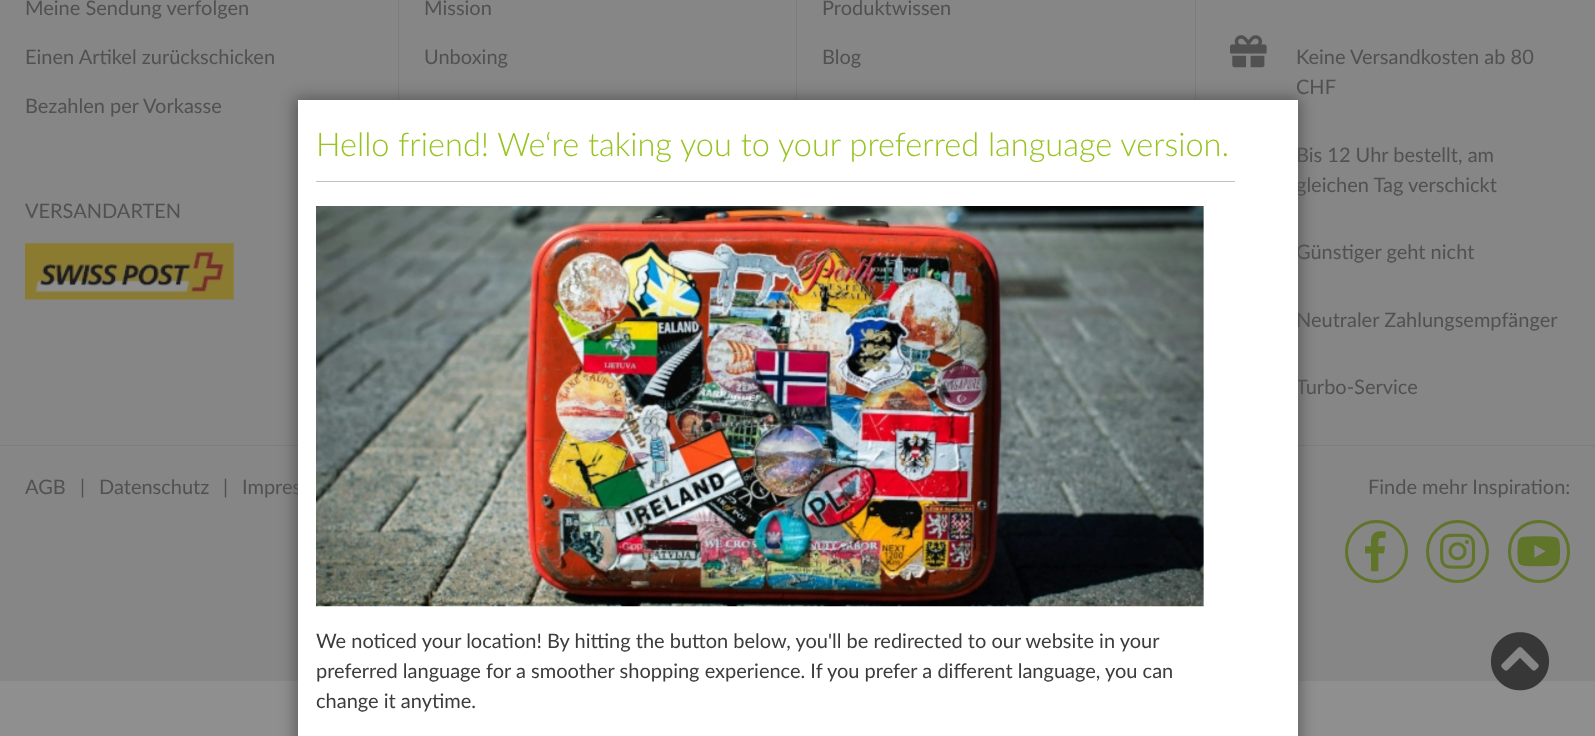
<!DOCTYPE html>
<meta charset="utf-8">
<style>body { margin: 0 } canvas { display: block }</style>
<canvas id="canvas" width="1595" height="736"></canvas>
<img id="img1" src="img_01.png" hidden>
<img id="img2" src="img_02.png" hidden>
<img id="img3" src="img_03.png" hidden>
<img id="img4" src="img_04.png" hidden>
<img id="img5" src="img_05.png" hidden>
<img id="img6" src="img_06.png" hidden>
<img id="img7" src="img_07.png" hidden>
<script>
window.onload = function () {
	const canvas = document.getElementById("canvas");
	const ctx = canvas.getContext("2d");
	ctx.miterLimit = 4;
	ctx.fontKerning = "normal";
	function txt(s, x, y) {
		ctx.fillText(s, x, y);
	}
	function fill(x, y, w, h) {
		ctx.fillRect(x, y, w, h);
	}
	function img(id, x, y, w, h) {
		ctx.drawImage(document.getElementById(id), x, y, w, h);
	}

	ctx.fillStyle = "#8F8F8F";
	fill(0, 0, 1595, 736);
	ctx.fillStyle = "#868686";
	fill(0, 0, 1595, 681);
	ctx.fillStyle = "#7D7D7D";
	fill(398, 0, 1, 100);
	fill(796, 0, 1, 100);
	fill(1195, 0, 1, 100);
	img("img1", 25, 243, 209, 57);
	img("img2", 1230, 35, 37, 33);
	fill(0, 445, 1595, 1);
	ctx.beginPath();
	ctx.arc(1376.5, 551.5, 30, 0, Math.PI * 2);
	ctx.strokeStyle = "#60742A";
	ctx.lineWidth = 3;
	ctx.stroke();
	img("img3", 1365, 531, 21, 41);
	ctx.beginPath();
	ctx.arc(1457.5, 551.5, 30, 0, Math.PI * 2);
	ctx.stroke();
	img("img4", 1440, 533, 36, 36);
	ctx.beginPath();
	ctx.roundRect(1509.5, 521.5, 59, 60, 29.5);
	ctx.stroke();
	img("img5", 1517, 536, 44, 31);
	img("img6", 1490, 632, 60, 59);
	ctx.fillStyle = "rgba(0, 0, 0, 0.35)";
	ctx.filter = "blur(7.5px)";
	ctx.beginPath();
	ctx.rect(295, 98, 1005, 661);
	ctx.fill();
	ctx.filter = "none";
	ctx.font = "20px Lato";
	ctx.fillStyle = "#515151";
	txt("Meine Sendung verfolgen", 25, 15);
	txt("Einen Artikel zurückschicken", 25, 64);
	txt("Bezahlen per Vorkasse", 25, 113);
	txt("Mission", 424, 15);
	txt("Unboxing", 424, 64);
	txt("Produktwissen", 822, 15);
	txt("Blog", 822, 64);
	txt("VERSANDARTEN", 25, 218);
	txt("Keine Versandkosten ab 80", 1296, 64);
	txt("CHF", 1296, 94);
	txt("Bis 12 Uhr bestellt, am", 1296, 162);
	txt("gleichen Tag verschickt", 1296, 192);
	txt("Günstiger geht nicht", 1296, 259);
	txt("Neutraler Zahlungsempfänger", 1296, 327);
	txt("Turbo-Service", 1296, 394);
	txt("AGB", 25, 494);
	txt("|", 80, 494);
	txt("Datenschutz", 99, 494);
	txt("|", 223, 494);
	txt("Impres", 242, 494);
	txt("Finde mehr Inspiration:", 1368, 494);
	ctx.fillStyle = "#FFFFFF";
	fill(298, 100, 1000, 636);
	ctx.fillStyle = "#C1C1C1";
	fill(316, 181, 919, 1);
	ctx.font = "300 32.5px Lato";
	ctx.fillStyle = "#96C31E";
	txt("Hello friend! We‘re taking you to your preferred language version.", 316, 156);
	img("img7", 316, 206, 888, 401);
	ctx.font = "20px Lato";
	ctx.fillStyle = "#3C3C3C";
	txt("We noticed your location! By hitting the button below, you'll be redirected to our website in your", 316, 648);
	txt("preferred language for a smoother shopping experience. If you prefer a different language, you can", 316, 678);
	txt("change it anytime.", 316, 708);
};
</script>
